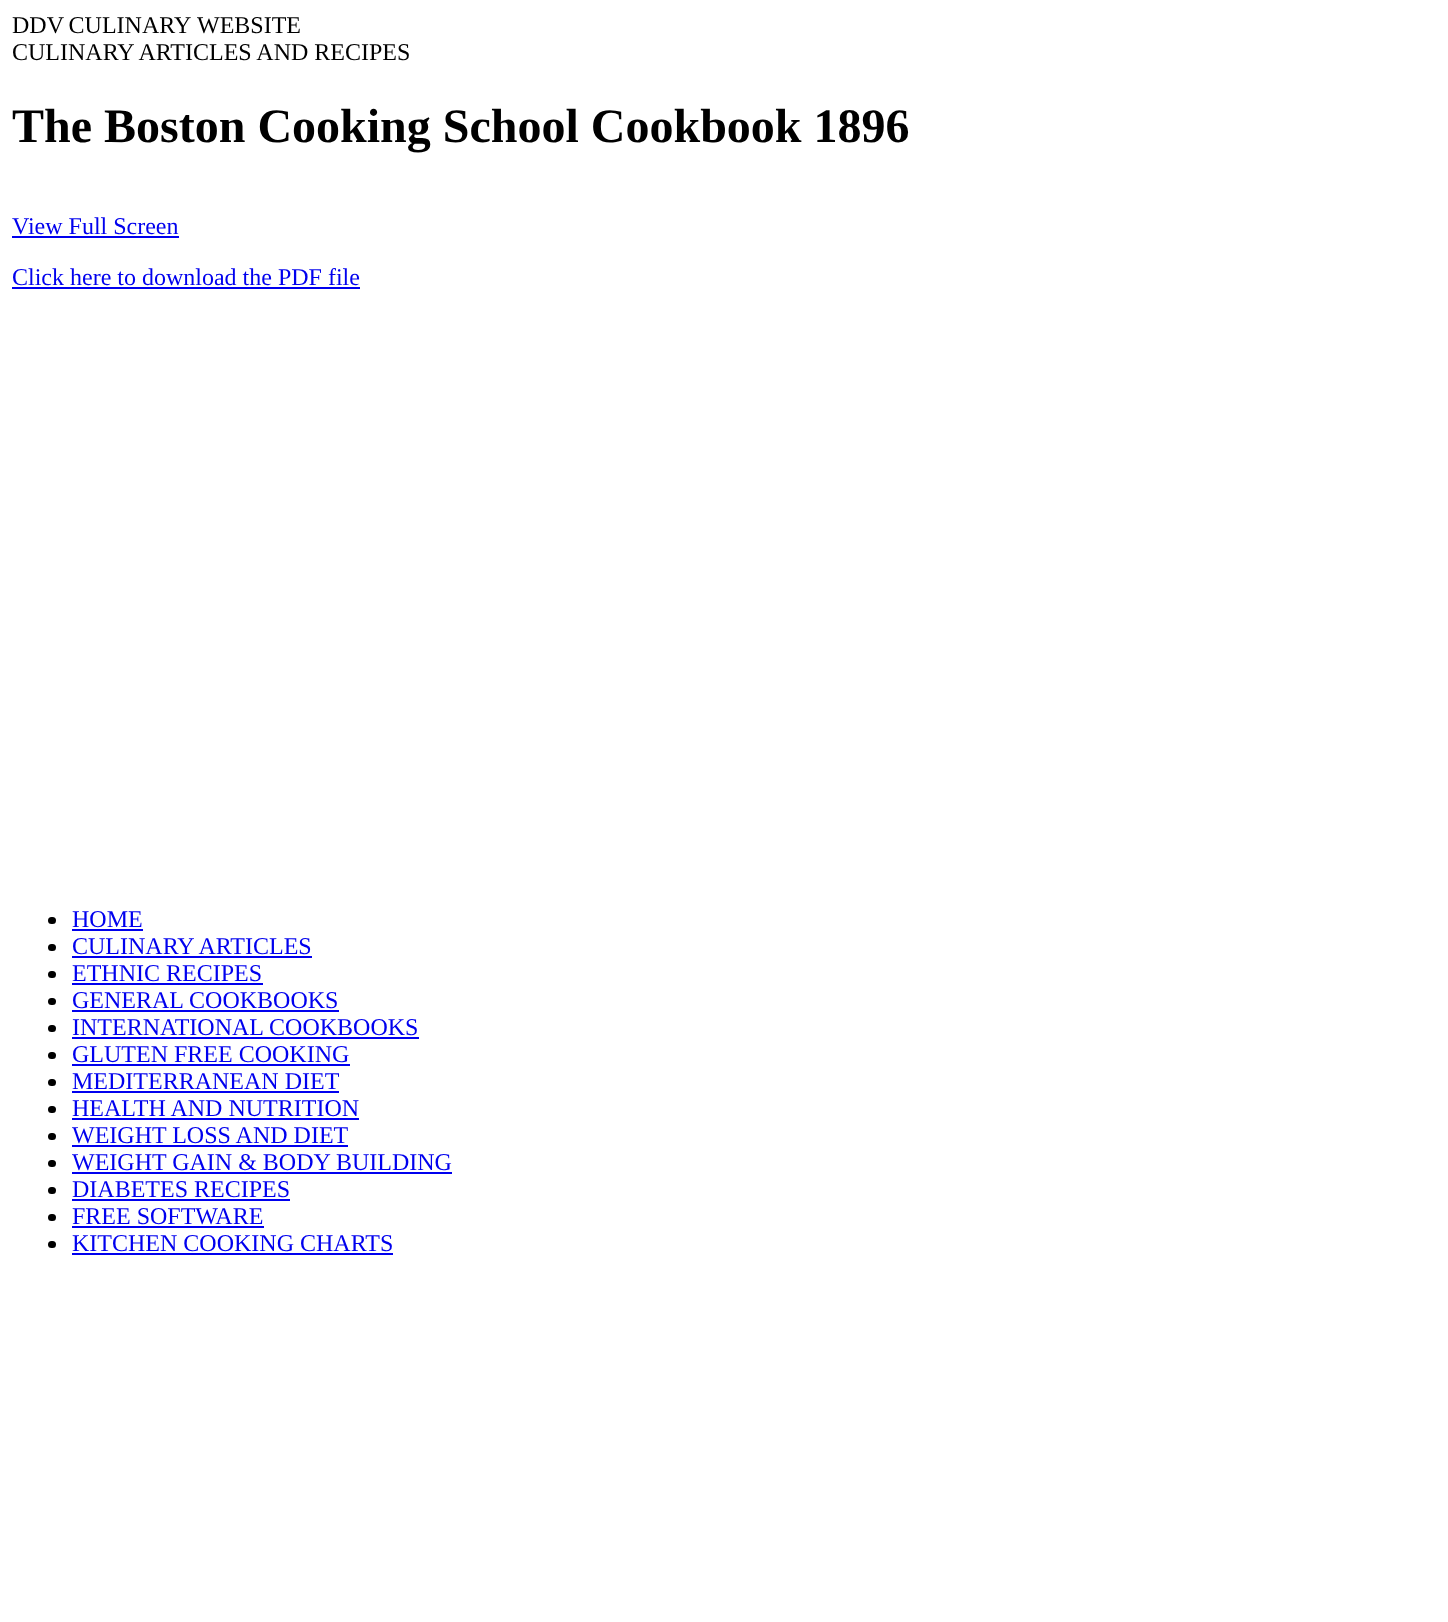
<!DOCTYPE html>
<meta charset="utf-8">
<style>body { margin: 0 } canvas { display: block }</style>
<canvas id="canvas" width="1448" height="1622"></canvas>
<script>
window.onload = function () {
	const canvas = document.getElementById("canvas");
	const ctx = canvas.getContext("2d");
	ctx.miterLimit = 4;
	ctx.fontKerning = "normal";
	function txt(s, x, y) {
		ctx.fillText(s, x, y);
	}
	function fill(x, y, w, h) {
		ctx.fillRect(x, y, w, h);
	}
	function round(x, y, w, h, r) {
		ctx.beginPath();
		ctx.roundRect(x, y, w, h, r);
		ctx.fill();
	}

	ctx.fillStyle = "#FFFFFF";
	fill(0, 0, 1448, 1622);
	ctx.fillStyle = "#0000EE";
	fill(12, 236, 167, 2);
	fill(12, 287, 348, 2);
	ctx.fillStyle = "#000000";
	round(48, 917, 8, 7, 3.5);
	ctx.fillStyle = "#0000EE";
	fill(72, 929, 71, 2);
	ctx.fillStyle = "#000000";
	round(48, 944, 8, 7, 3.5);
	ctx.fillStyle = "#0000EE";
	fill(72, 956, 240, 2);
	ctx.fillStyle = "#000000";
	round(48, 971, 8, 7, 3.5);
	ctx.fillStyle = "#0000EE";
	fill(72, 983, 191, 2);
	ctx.fillStyle = "#000000";
	round(48, 998, 8, 7, 3.5);
	ctx.fillStyle = "#0000EE";
	fill(72, 1010, 267, 2);
	ctx.fillStyle = "#000000";
	round(48, 1025, 8, 7, 3.5);
	ctx.fillStyle = "#0000EE";
	fill(72, 1037, 347, 2);
	ctx.fillStyle = "#000000";
	round(48, 1052, 8, 7, 3.5);
	ctx.fillStyle = "#0000EE";
	fill(72, 1064, 278, 2);
	ctx.fillStyle = "#000000";
	round(48, 1079, 8, 7, 3.5);
	ctx.fillStyle = "#0000EE";
	fill(72, 1091, 267, 2);
	ctx.fillStyle = "#000000";
	round(48, 1106, 8, 7, 3.5);
	ctx.fillStyle = "#0000EE";
	fill(72, 1118, 287, 2);
	ctx.fillStyle = "#000000";
	round(48, 1133, 8, 7, 3.5);
	ctx.fillStyle = "#0000EE";
	fill(72, 1145, 276, 2);
	ctx.fillStyle = "#000000";
	round(48, 1160, 8, 7, 3.5);
	ctx.fillStyle = "#0000EE";
	fill(72, 1172, 380, 2);
	ctx.fillStyle = "#000000";
	round(48, 1187, 8, 7, 3.5);
	ctx.fillStyle = "#0000EE";
	fill(72, 1199, 218, 2);
	ctx.fillStyle = "#000000";
	round(48, 1214, 8, 7, 3.5);
	ctx.fillStyle = "#0000EE";
	fill(72, 1226, 192, 2);
	ctx.fillStyle = "#000000";
	round(48, 1241, 8, 7, 3.5);
	ctx.fillStyle = "#0000EE";
	fill(72, 1253, 321, 2);
	ctx.wordSpacing = "-1px";
	ctx.font = "24px Liberation Serif";
	ctx.fillStyle = "#000000";
	txt("DDV CULINARY", 12, 33);
	ctx.wordSpacing = "0px";
	txt("WEBSITE", 197, 33);
	txt("CULINARY ARTICLES AND RECIPES", 12, 60);
	ctx.font = "bold 48px Liberation Serif";
	txt("The Boston Cooking School Cookbook 1896", 12, 142);
	ctx.font = "24px Liberation Serif";
	ctx.fillStyle = "#0000EE";
	txt("View Full Screen", 12, 234);
	txt("Click here to download the PDF file", 12, 285);
	txt("HOME", 72, 927);
	txt("CULINARY ARTICLES", 72, 954);
	txt("ETHNIC RECIPES", 72, 981);
	txt("GENERAL COOKBOOKS", 72, 1008);
	txt("INTERNATIONAL COOKBOOKS", 72, 1035);
	txt("GLUTEN FREE COOKING", 72, 1062);
	txt("MEDITERRANEAN DIET", 72, 1089);
	txt("HEALTH AND NUTRITION", 72, 1116);
	txt("WEIGHT LOSS AND DIET", 72, 1143);
	txt("WEIGHT GAIN & BODY BUILDING", 72, 1170);
	txt("DIABETES RECIPES", 72, 1197);
	txt("FREE SOFTWARE", 72, 1224);
	txt("KITCHEN COOKING CHARTS", 72, 1251);
};
</script>
